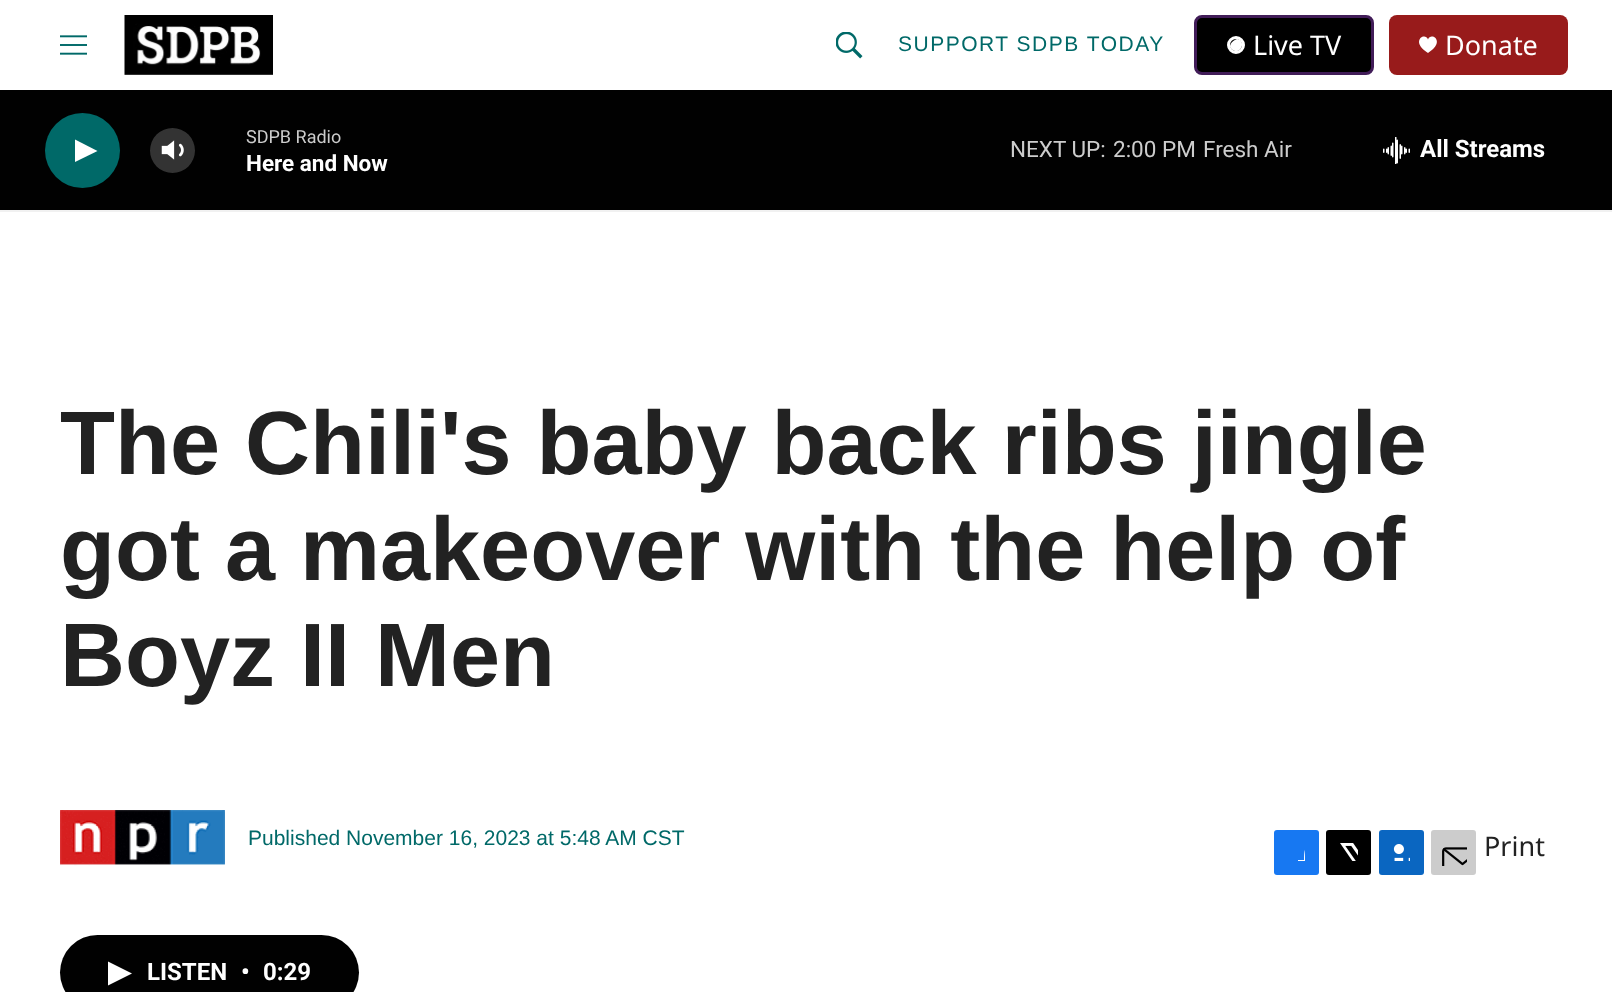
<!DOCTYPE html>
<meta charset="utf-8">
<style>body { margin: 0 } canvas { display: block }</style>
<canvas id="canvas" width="1612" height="992"></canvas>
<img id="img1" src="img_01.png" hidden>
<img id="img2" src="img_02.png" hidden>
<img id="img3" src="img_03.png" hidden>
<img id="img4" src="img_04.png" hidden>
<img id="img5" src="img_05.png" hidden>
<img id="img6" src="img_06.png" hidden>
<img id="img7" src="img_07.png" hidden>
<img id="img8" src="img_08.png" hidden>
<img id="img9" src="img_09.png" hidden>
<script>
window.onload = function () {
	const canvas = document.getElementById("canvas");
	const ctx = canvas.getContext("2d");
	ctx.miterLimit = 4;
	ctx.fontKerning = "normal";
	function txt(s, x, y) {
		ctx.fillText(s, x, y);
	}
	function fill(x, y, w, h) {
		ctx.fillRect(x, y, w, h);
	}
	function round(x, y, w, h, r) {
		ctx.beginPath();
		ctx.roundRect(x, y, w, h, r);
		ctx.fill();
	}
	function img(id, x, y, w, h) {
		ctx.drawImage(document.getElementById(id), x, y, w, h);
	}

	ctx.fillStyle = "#FFFFFF";
	fill(0, 0, 1612, 992);
	ctx.fillStyle = "#F1F1F1";
	fill(0, 210, 1612, 2);
	img("img1", 60, 35, 27, 20);
	img("img2", 124, 15, 149, 60);
	img("img3", 836, 32, 27, 27);
	ctx.fillStyle = "#000000";
	ctx.beginPath();
	ctx.roundRect(1195.5, 16.5, 177, 57, 6.5);
	ctx.fill();
	ctx.strokeStyle = "#411C58";
	ctx.lineWidth = 3;
	ctx.stroke();
	ctx.beginPath();
	ctx.arc(1236, 45, 7.5, 0, Math.PI * 2);
	ctx.strokeStyle = "#FFFFFF";
	ctx.stroke();
	ctx.fillStyle = "#FFFFFF";
	ctx.beginPath();
	ctx.moveTo(1237.5, 39);
	ctx.bezierCurveTo(1247, 41.5, 1240, 56, 1232, 49.5);
	ctx.bezierCurveTo(1231.5, 49, 1230, 47.5, 1230, 46.5);
	ctx.bezierCurveTo(1230, 43, 1234, 39.5, 1237.5, 39);
	ctx.closePath();
	ctx.fill();
	ctx.fillStyle = "#981B1B";
	round(1389, 15, 179, 60, 8);
	ctx.fillStyle = "#FFFFFF";
	ctx.beginPath();
	ctx.moveTo(1428, 39.5);
	ctx.bezierCurveTo(1425, 31.5, 1409.5, 41.5, 1428, 53);
	ctx.bezierCurveTo(1446.5, 41.5, 1431, 31.5, 1428, 39.5);
	ctx.closePath();
	ctx.fill();
	ctx.fillStyle = "#010101";
	fill(0, 90, 1612, 120);
	ctx.fillStyle = "#006968";
	ctx.beginPath();
	ctx.arc(82.5, 150.5, 37.5, 0, Math.PI * 2);
	ctx.fill();
	ctx.fillStyle = "#FFFFFF";
	ctx.beginPath();
	ctx.moveTo(75, 139.5);
	ctx.lineTo(97.5, 151);
	ctx.lineTo(75, 162);
	ctx.closePath();
	ctx.fill();
	img("img4", 161, 140, 23, 20);
	ctx.fillStyle = "rgba(255, 255, 255, 0.2)";
	ctx.beginPath();
	ctx.arc(172.5, 150.5, 22.5, 0, Math.PI * 2);
	ctx.fill();
	img("img5", 1383, 137, 27, 27);
	img("img6", 60, 810, 165, 56);
	ctx.fillStyle = "#1778F2";
	round(1274, 830, 45, 45, 3);
	ctx.save();
	ctx.beginPath();
	ctx.rect(1287, 843, 18, 18);
	ctx.clip();
	ctx.fillStyle = "#FFFFFF";
	ctx.beginPath();
	ctx.moveTo(1312, 875);
	ctx.lineTo(1304, 875);
	ctx.lineTo(1304, 867);
	ctx.lineTo(1298, 867);
	ctx.lineTo(1298, 860);
	ctx.lineTo(1304, 860);
	ctx.bezierCurveTo(1304, 847.5, 1306, 842, 1319, 844);
	ctx.lineTo(1319, 851);
	ctx.bezierCurveTo(1310.5, 851, 1312, 852.5, 1312, 860);
	ctx.lineTo(1319, 860);
	ctx.lineTo(1318, 867);
	ctx.lineTo(1312, 867);
	ctx.closePath();
	ctx.fill();
	ctx.restore();
	ctx.fillStyle = "#000000";
	round(1326, 830, 45, 45, 3);
	img("img7", 1340, 843, 18, 18);
	ctx.fillStyle = "#0A66C1";
	round(1379, 830, 45, 45, 3);
	img("img8", 1393, 844, 17, 17);
	ctx.fillStyle = "#CCCCCC";
	ctx.beginPath();
	ctx.roundRect(1432, 831, 43, 43, 2);
	ctx.fill();
	ctx.strokeStyle = "#CCCCCC";
	ctx.lineWidth = 2;
	ctx.stroke();
	img("img9", 1442, 847, 25, 19);
	ctx.fillStyle = "#010101";
	round(60, 935, 299, 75, 37.5);
	ctx.fillStyle = "#FFFFFF";
	ctx.beginPath();
	ctx.moveTo(108, 961.5);
	ctx.lineTo(132, 973.5);
	ctx.lineTo(108, 985.5);
	ctx.closePath();
	ctx.fill();
	ctx.letterSpacing = "1.5px";
	ctx.font = "21px Liberation Sans";
	ctx.fillStyle = "#006968";
	txt("SUPPORT SDPB TODAY", 898, 51);
	ctx.letterSpacing = "0px";
	ctx.font = "27px Noto Sans";
	ctx.fillStyle = "#FFFFFF";
	txt("Live TV", 1253, 55);
	txt("Donate", 1445, 55);
	ctx.font = "18px Roboto";
	ctx.fillStyle = "#CCCCCC";
	txt("SDPB Radio", 246, 143);
	ctx.font = "bold 22.5px Roboto";
	ctx.fillStyle = "#FFFFFF";
	txt("Here and Now", 246, 171);
	ctx.font = "22.5px Roboto";
	ctx.fillStyle = "#CCCCCC";
	txt("NEXT UP:", 1010, 157);
	txt("2:00 PM", 1113, 157);
	txt("Fresh Air", 1203, 157);
	ctx.font = "bold 24px Roboto";
	ctx.fillStyle = "#FFFFFF";
	txt("All Streams", 1420, 157);
	ctx.font = "bold 90px Liberation Sans";
	ctx.fillStyle = "#222222";
	txt("The Chili's baby back ribs jingle", 60, 474);
	txt("got a makeover with the help of", 60, 580);
	txt("Boyz II Men", 60, 686);
	ctx.font = "21px Liberation Sans";
	ctx.fillStyle = "#006968";
	txt("Published November 16, 2023 at 5:48 AM CST", 248, 845);
	ctx.font = "27px Noto Sans";
	ctx.fillStyle = "#222222";
	txt("Print", 1484, 856);
	ctx.font = "bold 24px Roboto";
	ctx.fillStyle = "#FFFFFF";
	txt("LISTEN", 147, 980);
	txt("•", 241, 980);
	txt("0:29", 263, 980);
};
</script>
